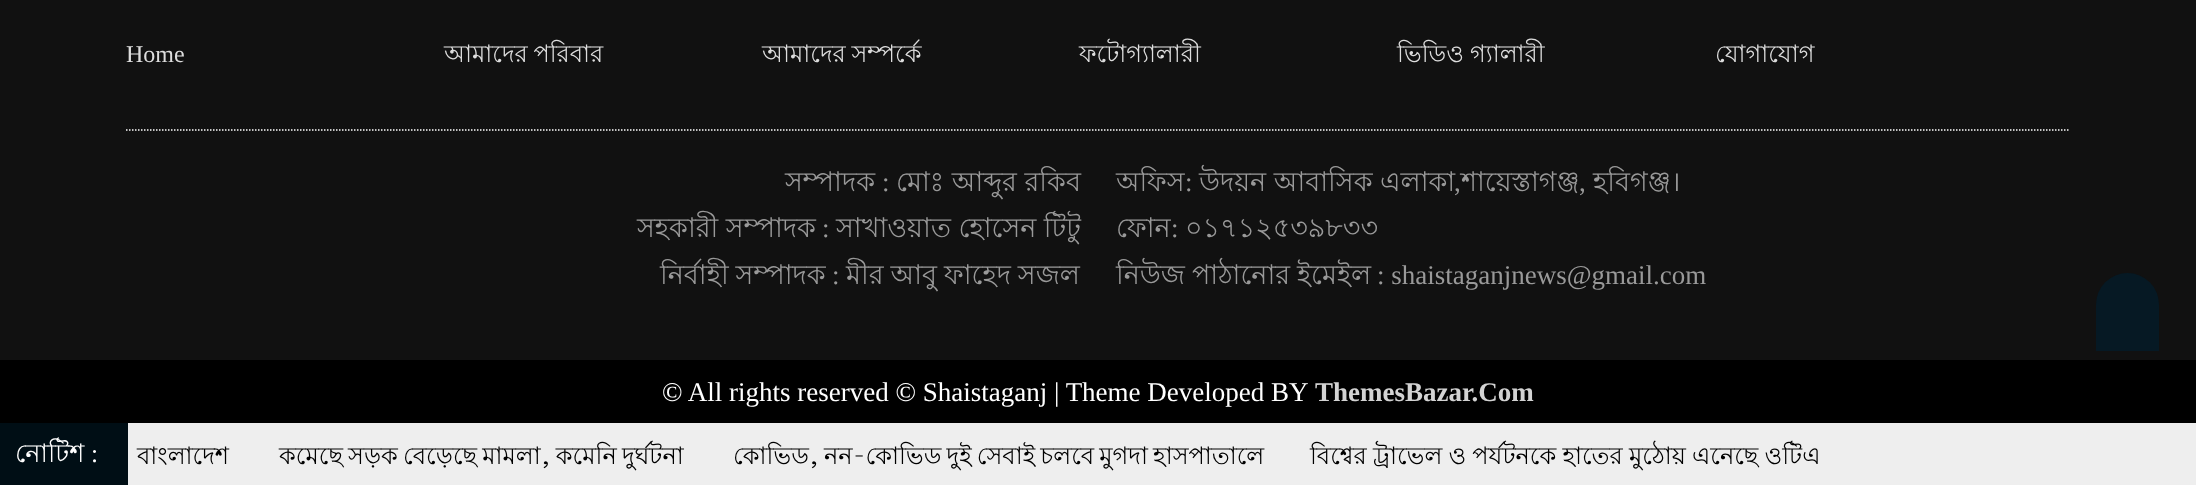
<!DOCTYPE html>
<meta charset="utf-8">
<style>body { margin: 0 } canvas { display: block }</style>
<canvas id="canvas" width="2196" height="485"></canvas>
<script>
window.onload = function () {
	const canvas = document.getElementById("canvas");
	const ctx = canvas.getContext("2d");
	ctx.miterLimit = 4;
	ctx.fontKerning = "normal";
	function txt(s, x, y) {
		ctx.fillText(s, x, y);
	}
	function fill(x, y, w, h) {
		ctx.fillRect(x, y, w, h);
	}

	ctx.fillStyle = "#111111";
	fill(0, 0, 2196, 485);
	ctx.beginPath();
	ctx.moveTo(126, 130);
	ctx.lineTo(2070, 130);
	ctx.strokeStyle = "#FFFFFF";
	ctx.lineWidth = 1.5;
	ctx.setLineDash([1.5, 1.5]);
	ctx.stroke();
	ctx.fillStyle = "#000000";
	fill(0, 360, 2196, 63);
	ctx.fillStyle = "#061924";
	ctx.beginPath();
	ctx.roundRect(2096, 273, 63, 78, [31.5, 31.5, 0, 0]);
	ctx.fill();
	ctx.fillStyle = "#000E15";
	fill(0, 423, 128, 62);
	ctx.fillStyle = "#EEEEEE";
	fill(128, 423, 2068, 62);
	ctx.font = "24px Liberation Serif";
	ctx.fillStyle = "#DDDDDD";
	txt("Home", 126, 62);
	ctx.wordSpacing = "-1px";
	ctx.font = "24px Lohit Bengali";
	txt("আমাদের পরিবার", 444, 62);
	txt("আমাদের সম্পর্কে", 762, 62);
	ctx.wordSpacing = "0px";
	txt("ফটোগ্যালারী", 1079, 62);
	ctx.wordSpacing = "-0.5px";
	txt("ভিডিও গ্যালারী", 1397, 62);
	ctx.wordSpacing = "0px";
	txt("যোগাযোগ", 1715, 62);
	ctx.font = "27px Lohit Bengali";
	ctx.fillStyle = "#999999";
	txt("সম্পাদক", 785, 191);
	ctx.font = "27px Liberation Serif";
	txt(":", 882, 191);
	ctx.font = "27px Lohit Bengali";
	txt("মোঃ আব্দুর রকিব", 896, 191);
	txt("সহকারী সম্পাদক", 637, 237);
	ctx.font = "27px Liberation Serif";
	txt(":", 822, 237);
	ctx.font = "27px Lohit Bengali";
	txt("সাখাওয়াত হোসেন টিটু", 836, 237);
	ctx.wordSpacing = "-0.5px";
	txt("নির্বাহী সম্পাদক", 660, 284);
	ctx.wordSpacing = "0px";
	ctx.font = "27px Liberation Serif";
	txt(":", 832, 284);
	ctx.wordSpacing = "-0.5px";
	ctx.font = "27px Lohit Bengali";
	txt("মীর আবু ফাহেদ সজল", 846, 284);
	ctx.wordSpacing = "0px";
	txt("অফিস", 1116, 191);
	ctx.font = "27px Liberation Serif";
	txt(":", 1185, 191);
	ctx.font = "27px Lohit Bengali";
	txt("উদয়ন আবাসিক এলাকা", 1199, 191);
	ctx.font = "27px Liberation Serif";
	txt(",", 1454, 191);
	ctx.font = "27px Lohit Bengali";
	txt("শায়েস্তাগঞ্জ", 1461, 191);
	ctx.font = "27px Liberation Serif";
	txt(",", 1579, 191);
	ctx.font = "27px Lohit Bengali";
	txt("হবিগঞ্জ।", 1593, 191);
	txt("ফোন", 1116, 237);
	ctx.font = "27px Liberation Serif";
	txt(":", 1171, 237);
	ctx.font = "27px Lohit Bengali";
	txt("০১৭১২৫৩৯৮৩৩", 1185, 237);
	txt("নিউজ", 1116, 284);
	txt("পাঠানোর", 1192, 284);
	txt("ইমেইল", 1297, 284);
	ctx.font = "27px Liberation Serif";
	txt(": shaistaganjnews@gmail.com", 1377, 284);
	ctx.fillStyle = "#FFFFFF";
	txt("© All rights reserved © Shaistaganj | Theme Developed BY", 662, 401);
	ctx.font = "bold 27px Liberation Serif";
	ctx.fillStyle = "#D3D3D3";
	txt("ThemesBazar.Com", 1315, 401);
	ctx.font = "25.5px Lohit Bengali";
	ctx.fillStyle = "#FFFFFF";
	txt("নোটিশ", 15, 462);
	ctx.font = "25.5px Liberation Serif";
	txt(":", 91, 462);
	ctx.wordSpacing = "-0.5px";
	ctx.font = "24px Lohit Bengali";
	ctx.fillStyle = "#000000";
	txt("বাংলাদেশ", 137, 464);
	ctx.wordSpacing = "-1.5px";
	txt("কমেছে সড়ক বেড়েছে মামলা, কমেনি দুর্ঘটনা", 279, 464);
	txt("কোভিড, নন-কোভিড দুই সেবাই চলবে মুগদা হাসপাতালে", 733, 464);
	ctx.wordSpacing = "-0.5px";
	txt("বিশ্বের ট্রাভেল ও পর্যটনকে হাতের মুঠোয় এনেছে ওটিএ", 1310, 464);
};
</script>
